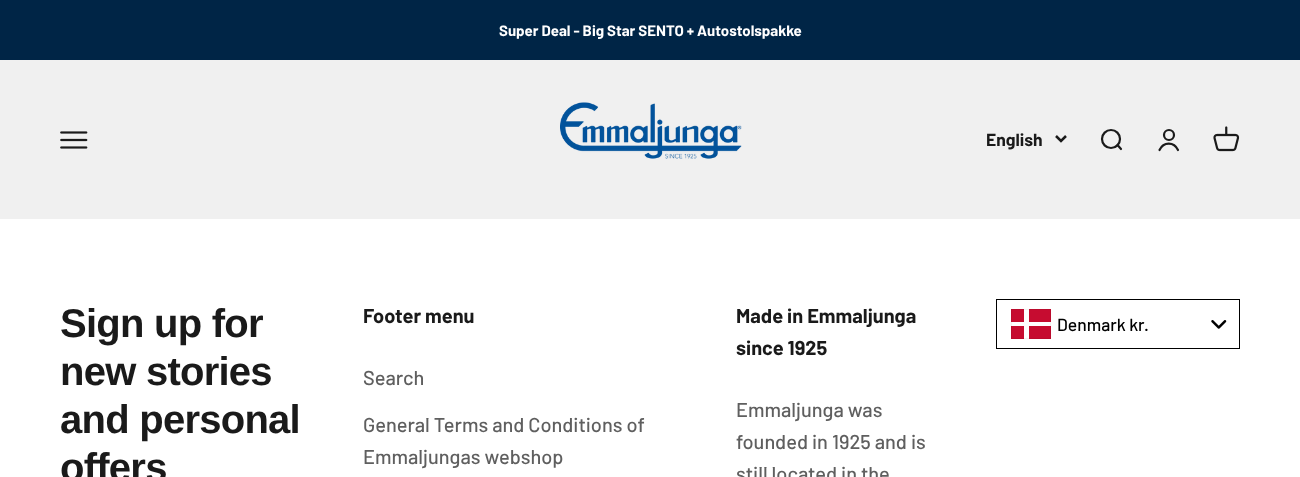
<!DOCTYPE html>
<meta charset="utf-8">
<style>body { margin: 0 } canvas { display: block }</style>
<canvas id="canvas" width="1300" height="477"></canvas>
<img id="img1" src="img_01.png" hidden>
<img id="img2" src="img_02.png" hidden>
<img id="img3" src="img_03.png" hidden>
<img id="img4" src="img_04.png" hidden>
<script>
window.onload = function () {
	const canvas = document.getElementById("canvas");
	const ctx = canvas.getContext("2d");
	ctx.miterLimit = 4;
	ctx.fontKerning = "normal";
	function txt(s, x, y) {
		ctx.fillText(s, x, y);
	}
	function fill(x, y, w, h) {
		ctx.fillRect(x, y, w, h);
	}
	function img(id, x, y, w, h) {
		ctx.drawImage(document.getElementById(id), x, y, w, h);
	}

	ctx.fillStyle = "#F0F0F0";
	fill(0, 0, 1300, 477);
	ctx.fillStyle = "#002546";
	fill(0, 0, 1300, 60);
	img("img1", 60, 131, 28, 18);
	img("img2", 560, 102, 182, 57);
	ctx.beginPath();
	ctx.moveTo(1056, 136);
	ctx.lineTo(1061, 141);
	ctx.lineTo(1066, 136);
	ctx.strokeStyle = "#1A1A1A";
	ctx.lineWidth = 2.5;
	ctx.stroke();
	ctx.beginPath();
	ctx.arc(1111, 139, 9, 0, Math.PI * 2);
	ctx.lineWidth = 2.2;
	ctx.stroke();
	ctx.beginPath();
	ctx.moveTo(1117.5, 145);
	ctx.lineTo(1121, 149);
	ctx.lineCap = "round";
	ctx.lineJoin = "round";
	ctx.stroke();
	ctx.beginPath();
	ctx.arc(1169, 135, 5, 0, Math.PI * 2);
	ctx.stroke();
	ctx.beginPath();
	ctx.moveTo(1159.5, 150);
	ctx.bezierCurveTo(1163.5, 141.5, 1174, 141.5, 1178, 150);
	ctx.lineJoin = "miter";
	ctx.stroke();
	img("img3", 1213, 126, 27, 26);
	ctx.fillStyle = "#FFFFFF";
	fill(0, 219, 1300, 258);
	img("img4", 1211, 320, 16, 9);
	ctx.strokeStyle = "#000000";
	ctx.lineWidth = 1;
	ctx.strokeRect(996.5, 299.5, 243, 49);
	ctx.fillStyle = "#C60C30";
	fill(1011, 309, 40, 30);
	ctx.fillStyle = "#FFFFFF";
	fill(1024, 309, 5, 30);
	fill(1011, 322, 40, 4);
	ctx.strokeStyle = "rgba(0, 0, 0, 0.05)";
	ctx.strokeRect(1011.5, 309.5, 39, 29);
	ctx.font = "bold 15px Barlow";
	txt("Super Deal - Big Star SENTO + Autostolspakke", 499, 36);
	ctx.font = "bold 17.5px Barlow";
	ctx.fillStyle = "#1A1A1A";
	txt("English", 986, 146);
	ctx.letterSpacing = "-0.75px";
	ctx.font = "bold 40px Liberation Sans";
	txt("Sign up for", 60, 337);
	txt("new stories", 60, 385);
	txt("and personal", 60, 433);
	txt("offers", 60, 481);
	ctx.letterSpacing = "0px";
	ctx.font = "bold 20px Barlow";
	txt("Footer menu", 363, 323);
	ctx.font = "500 20px Barlow";
	ctx.fillStyle = "#5F5F5F";
	txt("Search", 363, 385);
	txt("General Terms and Conditions of", 363, 432);
	txt("Emmaljungas webshop", 363, 464);
	ctx.font = "bold 20px Barlow";
	ctx.fillStyle = "#1A1A1A";
	txt("Made in Emmaljunga", 736, 323);
	txt("since 1925", 736, 355);
	ctx.font = "500 20px Barlow";
	ctx.fillStyle = "#5F5F5F";
	txt("Emmaljunga was", 736, 417);
	txt("founded in 1925 and is", 736, 449);
	txt("still located in the", 736, 481);
	ctx.font = "500 17.5px Barlow";
	ctx.fillStyle = "#000000";
	txt("Denmark kr.", 1057, 331);
};
</script>
